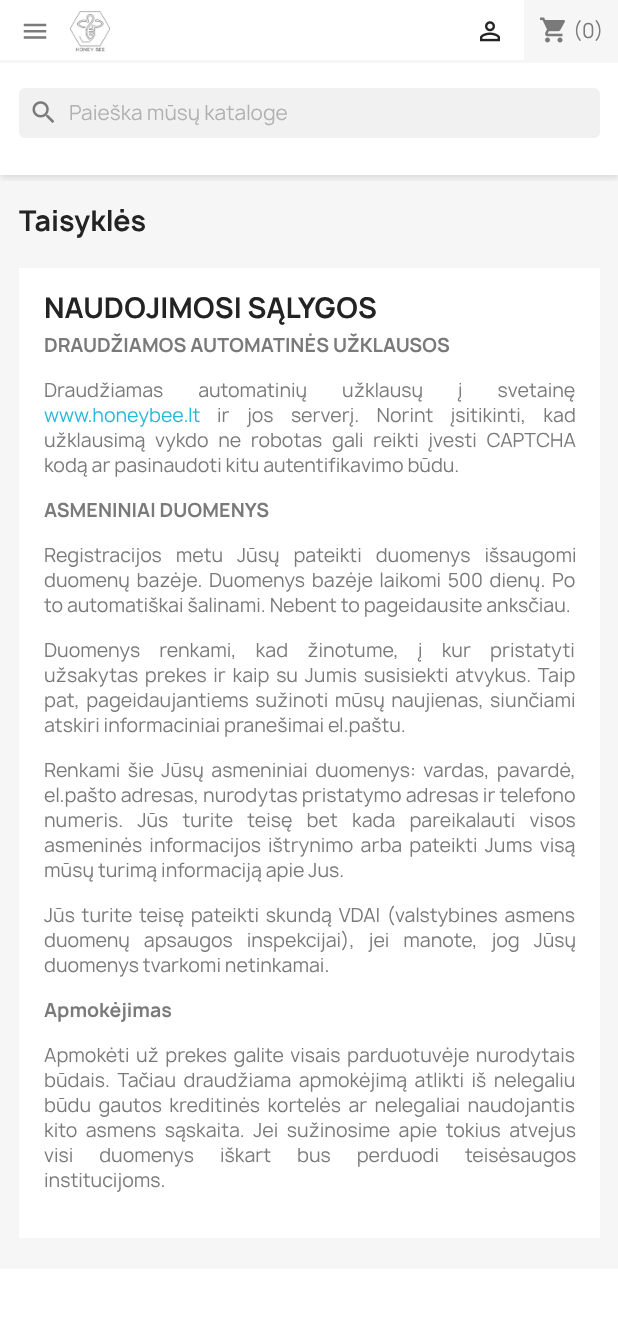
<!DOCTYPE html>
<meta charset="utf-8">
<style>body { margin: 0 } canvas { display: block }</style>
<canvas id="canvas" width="618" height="1342"></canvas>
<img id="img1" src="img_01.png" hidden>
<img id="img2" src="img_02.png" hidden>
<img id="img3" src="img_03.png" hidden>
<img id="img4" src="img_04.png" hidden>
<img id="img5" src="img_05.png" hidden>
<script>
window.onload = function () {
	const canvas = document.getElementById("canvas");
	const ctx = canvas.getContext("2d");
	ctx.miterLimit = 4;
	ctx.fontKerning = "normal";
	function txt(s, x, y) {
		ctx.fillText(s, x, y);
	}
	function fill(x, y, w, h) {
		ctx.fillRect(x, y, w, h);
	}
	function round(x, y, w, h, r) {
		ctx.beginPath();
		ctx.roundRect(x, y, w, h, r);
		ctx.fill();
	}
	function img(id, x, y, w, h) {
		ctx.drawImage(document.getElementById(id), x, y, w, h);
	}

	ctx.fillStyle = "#FFFFFF";
	fill(0, 0, 618, 1342);
	ctx.fillStyle = "#F6F6F6";
	fill(0, 175, 618, 1094);
	ctx.save();
	ctx.beginPath();
	ctx.rect(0, 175, 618, 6);
	ctx.clip();
	ctx.fillStyle = "rgba(0, 0, 0, 0.11)";
	ctx.filter = "blur(3px)";
	ctx.beginPath();
	ctx.rect(0, 3, 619, 175);
	ctx.fill();
	ctx.filter = "none";
	ctx.restore();
	fill(0, 60, 618, 3);
	img("img1", 23, 23, 24, 16);
	img("img2", 70, 11, 40, 41);
	img("img3", 480, 21, 20, 21);
	fill(524, 0, 94, 60);
	img("img4", 540, 17, 25, 26);
	ctx.fillStyle = "#F1F1F1";
	round(19, 88, 581, 50, 6);
	img("img5", 32, 101, 23, 22);
	ctx.fillStyle = "#FFFFFF";
	fill(19, 268, 581, 970);
	ctx.font = "20px Manrope";
	ctx.fillStyle = "#7A7A7A";
	txt("(0)", 573, 38);
	ctx.fillStyle = "#B1B1B1";
	txt("Paieška mūsų kataloge", 69, 120);
	ctx.font = "bold 27.5px Manrope";
	ctx.fillStyle = "#232323";
	txt("Taisyklės", 19, 231);
	txt("NAUDOJIMOSI SĄLYGOS", 44, 318);
	ctx.font = "bold 18.75px Manrope";
	ctx.fillStyle = "#7A7A7A";
	txt("DRAUDŽIAMOS AUTOMATINĖS UŽKLAUSOS", 44, 352);
	ctx.wordSpacing = "31px";
	ctx.font = "18.75px Manrope";
	txt("Draudžiamas automatinių užklausų į svetainę", 44, 397);
	ctx.wordSpacing = "0px";
	ctx.fillStyle = "#24B9D7";
	txt("www.honeybee.lt", 44, 422);
	ctx.wordSpacing = "13.5px";
	ctx.fillStyle = "#7A7A7A";
	txt("ir jos serverį. Norint įsitikinti, kad", 217, 422);
	ctx.wordSpacing = "5.75px";
	txt("užklausimą vykdo ne robotas gali reikti įvesti CAPTCHA", 44, 447);
	ctx.wordSpacing = "0px";
	txt("kodą ar pasinaudoti kitu autentifikavimo būdu.", 44, 472);
	ctx.font = "bold 18.75px Manrope";
	txt("ASMENINIAI DUOMENYS", 44, 517);
	ctx.wordSpacing = "10px";
	ctx.font = "18.75px Manrope";
	txt("Registracijos metu Jūsų pateikti duomenys išsaugomi", 44, 562);
	ctx.wordSpacing = "2.75px";
	txt("duomenų bazėje. Duomenys bazėje laikomi 500 dienų. Po", 44, 587);
	ctx.wordSpacing = "0px";
	txt("to automatiškai šalinami. Nebent to pageidausite anksčiau.", 44, 612);
	ctx.wordSpacing = "15.25px";
	txt("Duomenys renkami, kad žinotume, į kur pristatyti", 44, 657);
	ctx.wordSpacing = "2.75px";
	txt("užsakytas prekes ir kaip su Jumis susisiekti atvykus. Taip", 44, 682);
	ctx.wordSpacing = "2.5px";
	txt("pat, pageidaujantiems sužinoti mūsų naujienas, siunčiami", 44, 707);
	ctx.wordSpacing = "0px";
	txt("atskiri informaciniai pranešimai el.paštu.", 44, 732);
	ctx.wordSpacing = "3.5px";
	txt("Renkami šie Jūsų asmeniniai duomenys: vardas, pavardė,", 44, 777);
	ctx.wordSpacing = "0.25px";
	txt("el.pašto adresas, nurodytas pristatymo adresas ir telefono", 44, 802);
	ctx.wordSpacing = "10.25px";
	txt("numeris. Jūs turite teisę bet kada pareikalauti visos", 44, 827);
	ctx.wordSpacing = "3.25px";
	txt("asmeninės informacijos ištrynimo arba pateikti Jums visą", 44, 852);
	ctx.wordSpacing = "0px";
	txt("mūsų turimą informaciją apie Jus.", 44, 877);
	ctx.wordSpacing = "2.75px";
	txt("Jūs turite teisę pateikti skundą VDAI (valstybines asmens", 44, 922);
	ctx.wordSpacing = "10px";
	txt("duomenų apsaugos inspekcijai), jei manote, jog Jūsų", 44, 947);
	ctx.wordSpacing = "0px";
	txt("duomenys tvarkomi netinkamai.", 44, 972);
	ctx.font = "bold 18.75px Manrope";
	txt("Apmokėjimas", 44, 1017);
	ctx.wordSpacing = "2.5px";
	ctx.font = "18.75px Manrope";
	txt("Apmokėti už prekes galite visais parduotuvėje nurodytais", 44, 1062);
	ctx.wordSpacing = "3.5px";
	txt("būdais. Tačiau draudžiama apmokėjimą atlikti iš nelegaliu", 44, 1087);
	txt("būdu gautos kreditinės kortelės ar nelegaliai naudojantis", 44, 1112);
	ctx.wordSpacing = "4.5px";
	txt("kito asmens sąskaita. Jei sužinosime apie tokius atvejus", 44, 1137);
	ctx.wordSpacing = "22px";
	txt("visi duomenys iškart bus perduodi teisėsaugos", 44, 1162);
	ctx.wordSpacing = "0px";
	txt("institucijoms.", 44, 1187);
};
</script>
